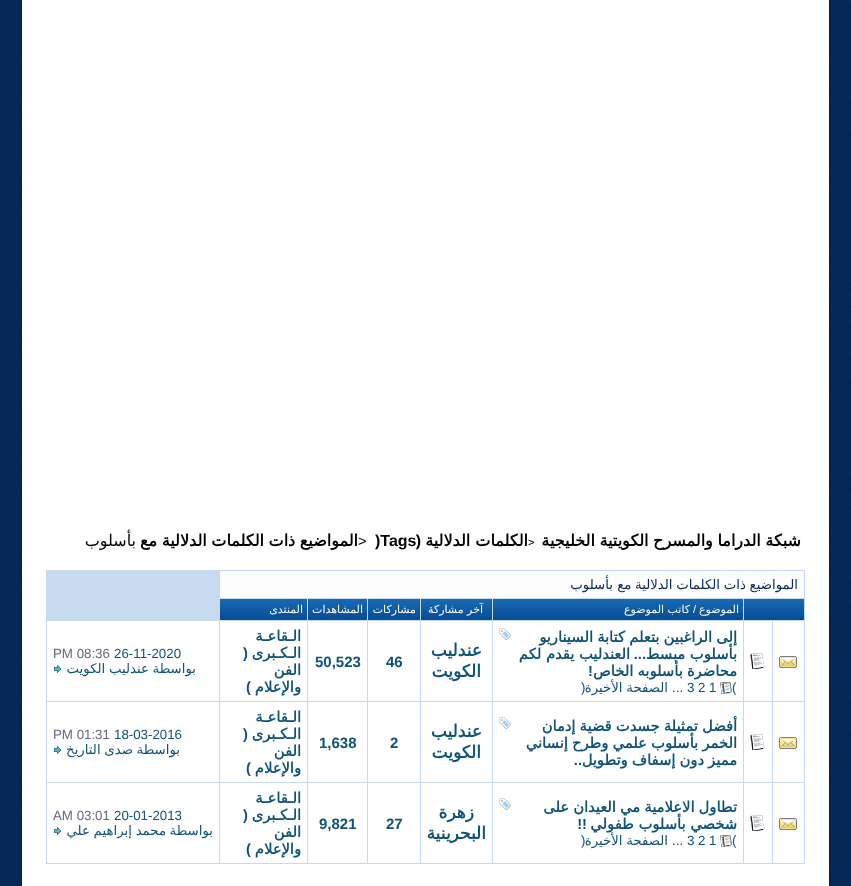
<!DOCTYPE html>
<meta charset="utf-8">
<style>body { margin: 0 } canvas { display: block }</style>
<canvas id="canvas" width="851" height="886"></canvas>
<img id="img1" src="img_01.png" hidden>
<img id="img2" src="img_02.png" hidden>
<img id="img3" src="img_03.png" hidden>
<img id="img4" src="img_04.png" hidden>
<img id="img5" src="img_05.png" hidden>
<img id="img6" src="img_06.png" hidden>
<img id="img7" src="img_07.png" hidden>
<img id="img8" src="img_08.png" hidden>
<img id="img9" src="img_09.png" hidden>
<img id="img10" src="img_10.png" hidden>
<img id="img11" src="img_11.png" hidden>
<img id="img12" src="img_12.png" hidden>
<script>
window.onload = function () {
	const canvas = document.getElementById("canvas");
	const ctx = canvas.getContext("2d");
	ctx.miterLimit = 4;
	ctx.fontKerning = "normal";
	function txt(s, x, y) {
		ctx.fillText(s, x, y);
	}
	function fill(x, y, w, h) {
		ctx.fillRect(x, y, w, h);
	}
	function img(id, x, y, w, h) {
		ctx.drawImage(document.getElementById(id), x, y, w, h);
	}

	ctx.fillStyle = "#FFFFFF";
	fill(0, 0, 851, 886);
	img("img1", 0, 0, 851, 886);
	fill(22, 0, 807, 886);
	ctx.fillStyle = "#021B43";
	fill(829, 0, 1, 886);
	fill(21, 0, 1, 886);
	ctx.fillStyle = "#C8DAEF";
	fill(46, 570, 759, 294);
	ctx.fillStyle = "#FDFDFD";
	fill(220, 571, 584, 27);
	img("img2", 744, 599, 60, 21);
	img("img3", 493, 599, 250, 21);
	img("img4", 421, 599, 71, 21);
	img("img5", 368, 599, 52, 21);
	img("img6", 308, 599, 59, 21);
	img("img7", 220, 599, 87, 21);
	ctx.fillStyle = "#FFFFFF";
	fill(773, 621, 31, 80);
	img("img8", 779, 656, 18, 12);
	fill(744, 621, 28, 80);
	img("img9", 750, 653, 15, 16);
	fill(493, 621, 250, 80);
	img("img10", 499, 628, 12, 12);
	img("img11", 720, 682, 12, 12);
	fill(421, 621, 71, 80);
	fill(368, 621, 52, 80);
	fill(308, 621, 59, 80);
	fill(220, 621, 87, 80);
	fill(47, 621, 172, 80);
	img("img12", 54, 665, 7, 8);
	fill(773, 702, 31, 80);
	img("img8", 779, 737, 18, 12);
	fill(744, 702, 28, 80);
	img("img9", 750, 734, 15, 16);
	fill(493, 702, 250, 80);
	img("img10", 499, 717, 12, 12);
	fill(421, 702, 71, 80);
	fill(368, 702, 52, 80);
	fill(308, 702, 59, 80);
	fill(220, 702, 87, 80);
	fill(47, 702, 172, 80);
	img("img12", 54, 746, 7, 8);
	fill(773, 783, 31, 80);
	img("img8", 779, 818, 18, 12);
	fill(744, 783, 28, 80);
	img("img9", 750, 815, 15, 16);
	fill(493, 783, 250, 80);
	img("img10", 499, 798, 12, 12);
	img("img11", 720, 835, 12, 12);
	fill(421, 783, 71, 80);
	fill(368, 783, 52, 80);
	fill(308, 783, 59, 80);
	fill(220, 783, 87, 80);
	fill(47, 783, 172, 80);
	img("img12", 54, 827, 7, 8);
	ctx.wordSpacing = "-0.5px";
	ctx.direction = "rtl";
	ctx.font = "bold 16px DejaVu Sans";
	ctx.fillStyle = "#000000";
	txt("شبكة الدراما والمسرح الكويتية الخليجية", 801, 546);
	ctx.wordSpacing = "0px";
	ctx.direction = "ltr";
	ctx.font = "11px Liberation Sans";
	txt(">", 528, 546);
	ctx.direction = "rtl";
	ctx.font = "bold 16px DejaVu Sans";
	txt("الكلمات الدلالية", 528, 546);
	ctx.font = "bold 16px Liberation Sans";
	txt("(", 421, 546);
	ctx.direction = "ltr";
	txt(")Tags", 375, 546);
	ctx.font = "14.7px Liberation Sans";
	txt(">", 358, 546);
	ctx.wordSpacing = "-0.5px";
	ctx.direction = "rtl";
	ctx.font = "bold 16px DejaVu Sans";
	txt("المواضيع ذات الكلمات الدلالية مع", 358, 546);
	ctx.wordSpacing = "0px";
	ctx.font = "16px DejaVu Sans";
	txt("بأسلوب", 136, 546);
	ctx.wordSpacing = "-0.5px";
	ctx.font = "13.3px DejaVu Sans";
	ctx.fillStyle = "#052858";
	txt("المواضيع ذات الكلمات الدلالية مع", 798, 589);
	ctx.wordSpacing = "0px";
	txt("بأسلوب", 613, 589);
	ctx.font = "11px DejaVu Sans";
	ctx.fillStyle = "#FFFFFF";
	txt("الموضوع", 739, 613);
	ctx.font = "11px Liberation Sans";
	txt("/", 696, 613);
	ctx.font = "11px DejaVu Sans";
	txt("كاتب الموضوع", 690, 613);
	txt("آخر مشاركة", 483, 613);
	txt("مشاركات", 416, 613);
	txt("المشاهدات", 363, 613);
	txt("المنتدى", 303, 613);
	ctx.wordSpacing = "-0.5px";
	ctx.font = "bold 14.7px DejaVu Sans";
	ctx.fillStyle = "#0E5378";
	txt("إلى الراغبين بتعلم كتابة السيناريو", 737, 642);
	ctx.wordSpacing = "0px";
	txt("بأسلوب مبسط", 737, 659);
	ctx.font = "bold 14.7px Liberation Sans";
	txt("...", 646, 659);
	ctx.font = "bold 14.7px DejaVu Sans";
	txt("العندليب يقدم لكم", 630, 659);
	ctx.wordSpacing = "-0.5px";
	txt("محاضرة بأسلوبه الخاص", 737, 676);
	ctx.wordSpacing = "0px";
	ctx.font = "bold 14.7px Liberation Sans";
	txt("!", 593, 676);
	ctx.direction = "ltr";
	ctx.font = "13.3px Liberation Sans";
	txt("(", 732, 692);
	txt("1", 709, 692);
	txt("2", 698, 692);
	txt("3", 687, 692);
	txt("...", 672, 692);
	ctx.wordSpacing = "-0.5px";
	ctx.direction = "rtl";
	ctx.font = "13.3px DejaVu Sans";
	txt("الصفحة الأخيرة", 668, 692);
	ctx.wordSpacing = "0px";
	ctx.direction = "ltr";
	ctx.font = "13.3px Liberation Sans";
	txt(")", 581, 692);
	ctx.direction = "rtl";
	ctx.font = "bold 17px DejaVu Sans";
	txt("عندليب", 482, 656);
	txt("الكويت", 481, 677);
	ctx.direction = "ltr";
	ctx.font = "bold 15px Liberation Sans";
	txt("46", 386, 667);
	txt("50,523", 315, 667);
	ctx.direction = "rtl";
	ctx.font = "bold 14.7px DejaVu Sans";
	txt("الـقاعـة", 301, 641);
	txt("الـكـبرى", 301, 658);
	ctx.font = "bold 14.7px Liberation Sans";
	txt("(", 248, 658);
	ctx.font = "bold 14.7px DejaVu Sans";
	txt("الفن", 301, 675);
	txt("والإعلام", 301, 692);
	ctx.font = "bold 14.7px Liberation Sans";
	txt(")", 251, 692);
	ctx.direction = "ltr";
	ctx.font = "13.3px Liberation Sans";
	txt("26-11-2020", 114, 658);
	ctx.fillStyle = "#666686";
	txt("PM 08:36", 53, 658);
	ctx.direction = "rtl";
	ctx.font = "13.3px DejaVu Sans";
	ctx.fillStyle = "#0E5378";
	txt("بواسطة", 196, 673);
	ctx.wordSpacing = "-0.5px";
	txt("عندليب الكويت", 149, 673);
	ctx.font = "bold 14.7px DejaVu Sans";
	txt("أفضل تمثيلة جسدت قضية إدمان", 737, 731);
	txt("الخمر بأسلوب علمي وطرح إنساني", 737, 748);
	txt("مميز دون إسفاف وتطويل", 737, 765);
	ctx.wordSpacing = "0px";
	ctx.font = "bold 14.7px Liberation Sans";
	txt("..", 582, 765);
	ctx.font = "bold 17px DejaVu Sans";
	txt("عندليب", 482, 737);
	txt("الكويت", 481, 758);
	ctx.direction = "ltr";
	ctx.font = "bold 15px Liberation Sans";
	txt("2", 390, 748);
	txt("1,638", 319, 748);
	ctx.direction = "rtl";
	ctx.font = "bold 14.7px DejaVu Sans";
	txt("الـقاعـة", 301, 722);
	txt("الـكـبرى", 301, 739);
	ctx.font = "bold 14.7px Liberation Sans";
	txt("(", 248, 739);
	ctx.font = "bold 14.7px DejaVu Sans";
	txt("الفن", 301, 756);
	txt("والإعلام", 301, 773);
	ctx.font = "bold 14.7px Liberation Sans";
	txt(")", 251, 773);
	ctx.direction = "ltr";
	ctx.font = "13.3px Liberation Sans";
	txt("18-03-2016", 114, 739);
	ctx.fillStyle = "#666686";
	txt("PM 01:31", 53, 739);
	ctx.direction = "rtl";
	ctx.font = "13.3px DejaVu Sans";
	ctx.fillStyle = "#0E5378";
	txt("بواسطة", 180, 754);
	ctx.wordSpacing = "-0.5px";
	txt("صدى التاريخ", 133, 754);
	ctx.font = "bold 14.7px DejaVu Sans";
	txt("تطاول الاعلامية مي العيدان على", 737, 812);
	ctx.wordSpacing = "0px";
	txt("شخصي بأسلوب طفولي", 737, 829);
	ctx.font = "bold 14.7px Liberation Sans";
	txt("!!", 587, 829);
	ctx.direction = "ltr";
	ctx.font = "13.3px Liberation Sans";
	txt("(", 732, 845);
	txt("1", 709, 845);
	txt("2", 698, 845);
	txt("3", 687, 845);
	txt("...", 672, 845);
	ctx.wordSpacing = "-0.5px";
	ctx.direction = "rtl";
	ctx.font = "13.3px DejaVu Sans";
	txt("الصفحة الأخيرة", 668, 845);
	ctx.wordSpacing = "0px";
	ctx.direction = "ltr";
	ctx.font = "13.3px Liberation Sans";
	txt(")", 581, 845);
	ctx.direction = "rtl";
	ctx.font = "bold 17px DejaVu Sans";
	txt("زهرة", 474, 818);
	txt("البحرينية", 486, 839);
	ctx.direction = "ltr";
	ctx.font = "bold 15px Liberation Sans";
	txt("27", 386, 829);
	txt("9,821", 319, 829);
	ctx.direction = "rtl";
	ctx.font = "bold 14.7px DejaVu Sans";
	txt("الـقاعـة", 301, 803);
	txt("الـكـبرى", 301, 820);
	ctx.font = "bold 14.7px Liberation Sans";
	txt("(", 248, 820);
	ctx.font = "bold 14.7px DejaVu Sans";
	txt("الفن", 301, 837);
	txt("والإعلام", 301, 854);
	ctx.font = "bold 14.7px Liberation Sans";
	txt(")", 251, 854);
	ctx.direction = "ltr";
	ctx.font = "13.3px Liberation Sans";
	txt("20-01-2013", 114, 820);
	ctx.fillStyle = "#666686";
	txt("AM 03:01", 53, 820);
	ctx.direction = "rtl";
	ctx.font = "13.3px DejaVu Sans";
	ctx.fillStyle = "#0E5378";
	txt("بواسطة", 213, 835);
	ctx.wordSpacing = "-0.5px";
	txt("محمد إبراهيم علي", 166, 835);
};
</script>
